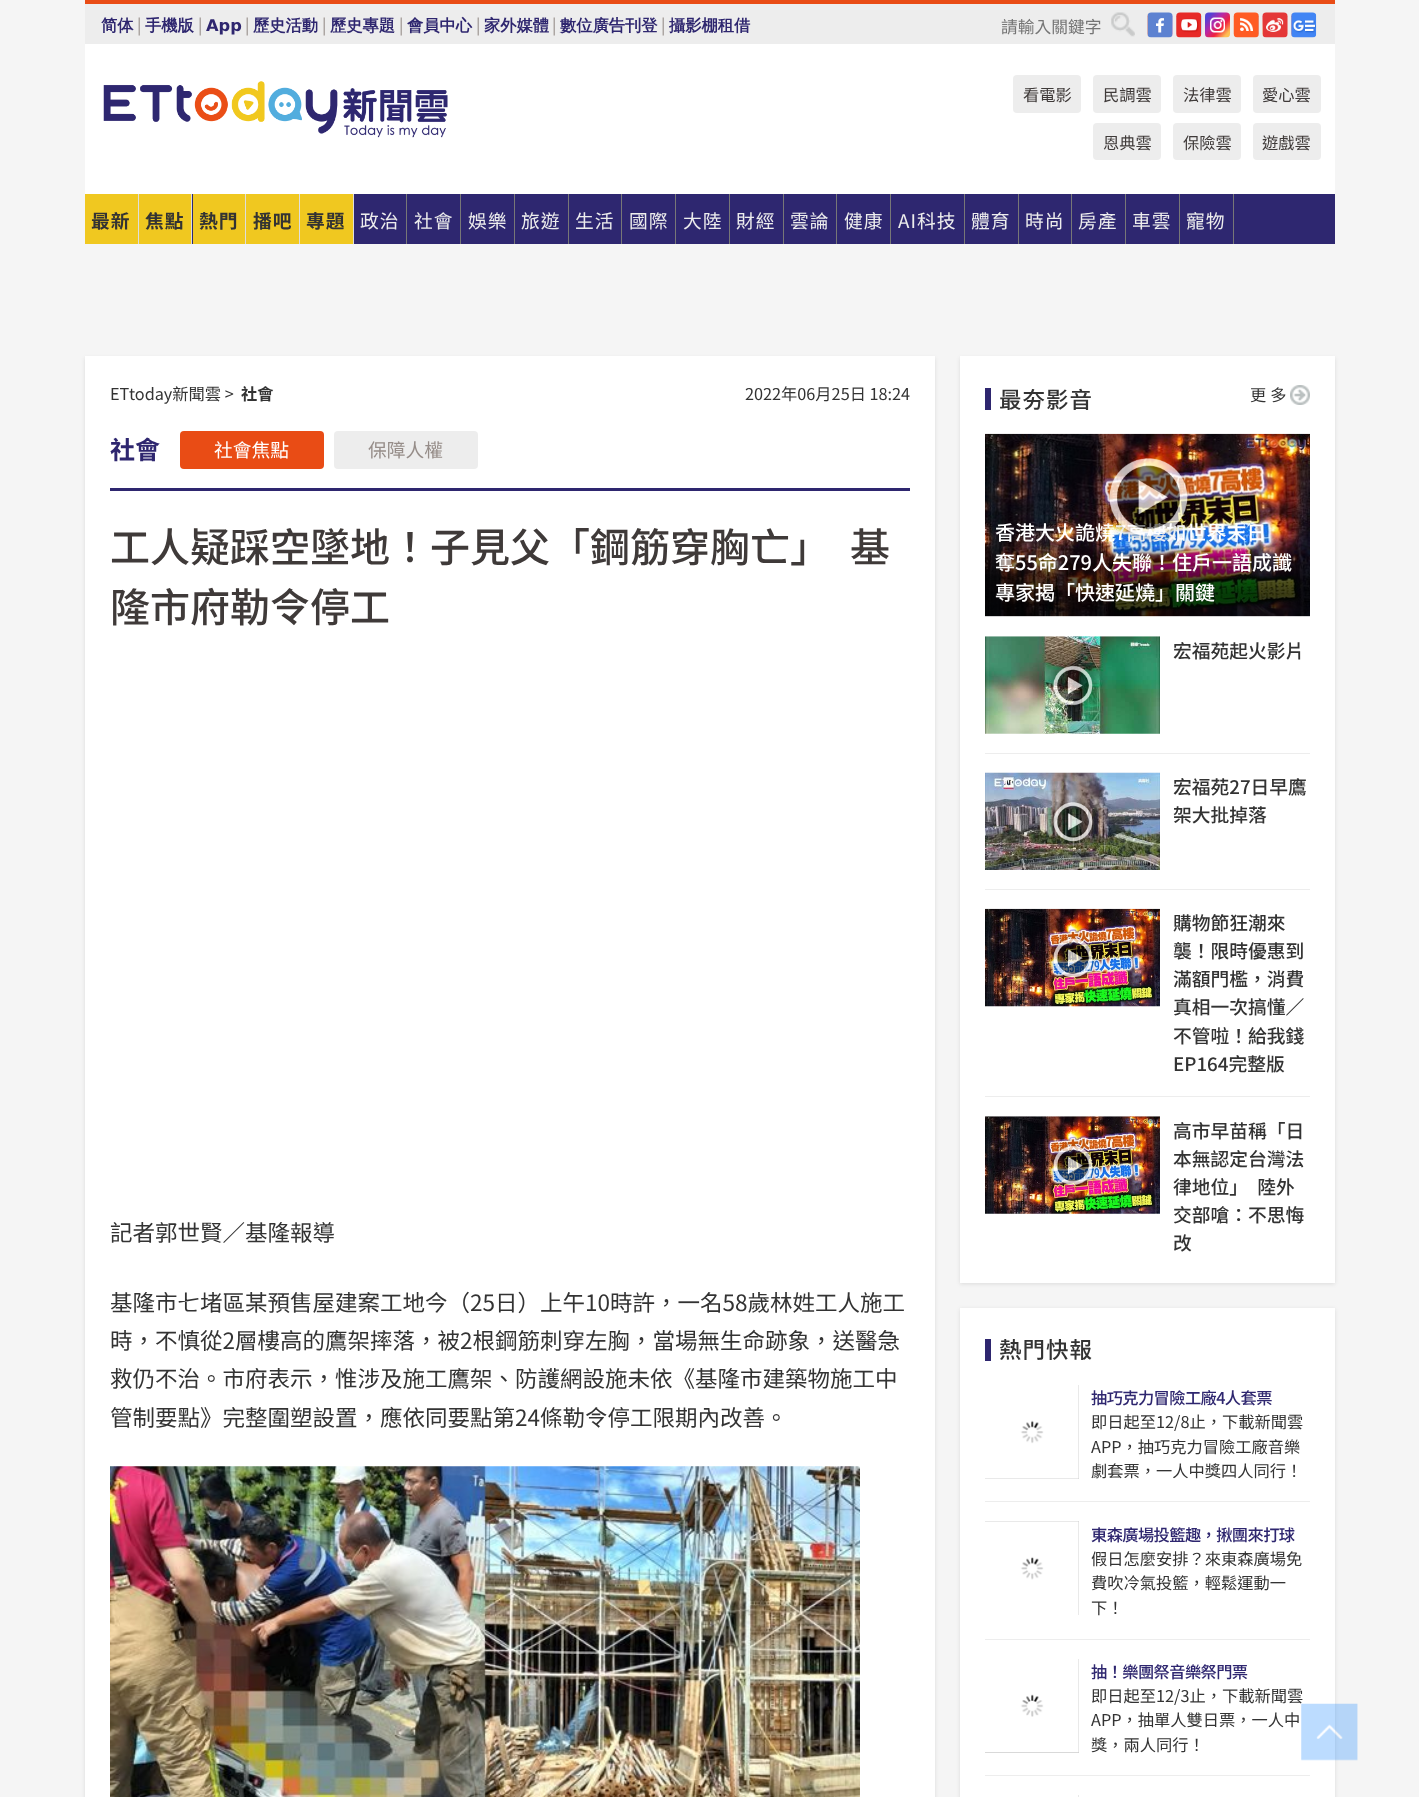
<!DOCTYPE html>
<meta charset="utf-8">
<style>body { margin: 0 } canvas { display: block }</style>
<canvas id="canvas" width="1419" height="1797"></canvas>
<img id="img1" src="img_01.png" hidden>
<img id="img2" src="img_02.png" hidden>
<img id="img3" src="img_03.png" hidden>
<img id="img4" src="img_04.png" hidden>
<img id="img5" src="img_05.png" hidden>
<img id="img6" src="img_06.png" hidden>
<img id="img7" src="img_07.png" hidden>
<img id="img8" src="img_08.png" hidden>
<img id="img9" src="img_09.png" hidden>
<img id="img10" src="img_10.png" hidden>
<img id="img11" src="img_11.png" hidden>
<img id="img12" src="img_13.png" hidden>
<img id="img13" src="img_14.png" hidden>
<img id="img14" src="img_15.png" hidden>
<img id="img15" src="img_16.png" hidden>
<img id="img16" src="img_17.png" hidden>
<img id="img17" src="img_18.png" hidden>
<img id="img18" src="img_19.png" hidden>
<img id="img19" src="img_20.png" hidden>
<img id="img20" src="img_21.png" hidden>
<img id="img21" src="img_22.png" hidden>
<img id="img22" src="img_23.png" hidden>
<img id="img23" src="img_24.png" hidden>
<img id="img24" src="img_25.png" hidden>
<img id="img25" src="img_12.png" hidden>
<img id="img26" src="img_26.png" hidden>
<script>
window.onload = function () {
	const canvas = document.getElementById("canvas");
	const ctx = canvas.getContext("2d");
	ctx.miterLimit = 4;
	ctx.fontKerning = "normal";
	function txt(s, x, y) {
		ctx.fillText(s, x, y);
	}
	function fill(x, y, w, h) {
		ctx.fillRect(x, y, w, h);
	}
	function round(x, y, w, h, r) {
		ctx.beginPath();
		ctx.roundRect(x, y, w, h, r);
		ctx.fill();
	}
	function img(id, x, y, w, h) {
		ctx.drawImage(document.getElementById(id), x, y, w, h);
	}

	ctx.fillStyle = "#F5F5F5";
	fill(0, 0, 1419, 1797);
	ctx.fillStyle = "#EDEDED";
	fill(85, 4, 1250, 40);
	ctx.fillStyle = "#E94C15";
	fill(85, 0, 1250, 4);
	img("img1", 1111, 12, 24, 25);
	img("img2", 1147, 12, 26, 26);
	img("img3", 1176, 12, 26, 26);
	img("img4", 1205, 12, 25, 26);
	img("img5", 1233, 12, 26, 26);
	img("img6", 1262, 12, 26, 26);
	img("img7", 1291, 12, 26, 26);
	ctx.fillStyle = "#FFFFFF";
	fill(85, 44, 1250, 150);
	img("img8", 103, 81, 345, 57);
	ctx.fillStyle = "#EDEDED";
	round(1013, 75, 68, 38, 4);
	round(1093, 75, 68, 38, 4);
	round(1173, 75, 68, 38, 4);
	round(1253, 75, 68, 38, 4);
	round(1093, 123, 68, 37, 4);
	round(1173, 123, 68, 37, 4);
	round(1253, 123, 68, 37, 4);
	ctx.fillStyle = "#2E2770";
	fill(192, 194, 1143, 50);
	ctx.fillStyle = "#DEDEDE";
	fill(138, 194, 1, 50);
	ctx.fillStyle = "#F0C820";
	fill(85, 194, 53, 50);
	ctx.fillStyle = "#DEDEDE";
	fill(191, 194, 1, 50);
	ctx.fillStyle = "#F0C820";
	fill(139, 194, 52, 50);
	ctx.fillStyle = "#DEDEDE";
	fill(245, 194, 1, 50);
	ctx.fillStyle = "#F0C820";
	fill(193, 194, 52, 50);
	ctx.fillStyle = "#DEDEDE";
	fill(299, 194, 1, 50);
	ctx.fillStyle = "#F0C820";
	fill(246, 194, 53, 50);
	ctx.fillStyle = "#DEDEDE";
	fill(353, 194, 1, 50);
	ctx.fillStyle = "#F0C820";
	fill(300, 194, 53, 50);
	ctx.fillStyle = "#777777";
	fill(406, 194, 1, 50);
	fill(460, 194, 1, 50);
	fill(514, 194, 1, 50);
	fill(568, 194, 1, 50);
	fill(621, 194, 1, 50);
	fill(675, 194, 1, 50);
	fill(729, 194, 1, 50);
	fill(783, 194, 1, 50);
	fill(836, 194, 1, 50);
	fill(890, 194, 1, 50);
	fill(964, 194, 1, 50);
	fill(1018, 194, 1, 50);
	fill(1071, 194, 1, 50);
	fill(1125, 194, 1, 50);
	fill(1179, 194, 1, 50);
	fill(1233, 194, 1, 50);
	ctx.fillStyle = "rgba(0, 0, 0, 0.1)";
	ctx.filter = "blur(2px)";
	ctx.beginPath();
	ctx.rect(85, 358, 850, 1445);
	ctx.fill();
	ctx.filter = "none";
	ctx.fillStyle = "#FFFFFF";
	fill(85, 356, 850, 1441);
	ctx.fillStyle = "#2E266F";
	fill(110, 488, 800, 3);
	ctx.fillStyle = "#E94C15";
	round(180, 431, 144, 38, 4);
	ctx.fillStyle = "#EDEDED";
	round(334, 431, 144, 38, 4);
	img("img9", 110, 1466, 750, 331);
	ctx.fillStyle = "rgba(0, 0, 0, 0.1)";
	ctx.filter = "blur(2px)";
	ctx.beginPath();
	ctx.rect(960, 358, 375, 926);
	ctx.fill();
	ctx.filter = "none";
	ctx.fillStyle = "#FFFFFF";
	fill(960, 356, 375, 927);
	ctx.fillStyle = "#2E266F";
	fill(985, 388, 6, 22);
	img("img10", 1290, 385, 20, 20);
	ctx.fillStyle = "#EDEDED";
	fill(985, 616, 325, 1);
	img("img11", 985, 433, 325, 184);
	img("img12", 985, 546, 325, 71);
	fill(985, 753, 325, 1);
	img("img13", 985, 636, 175, 98);
	img("img14", 1049, 663, 48, 45);
	fill(985, 889, 325, 1);
	img("img15", 985, 772, 175, 98);
	img("img16", 1049, 798, 45, 47);
	fill(985, 1096, 325, 1);
	img("img17", 985, 908, 175, 99);
	img("img18", 1049, 934, 48, 48);
	img("img19", 985, 1116, 175, 98);
	img("img20", 1049, 1142, 48, 47);
	ctx.fillStyle = "rgba(0, 0, 0, 0.1)";
	ctx.filter = "blur(2px)";
	ctx.beginPath();
	ctx.rect(960, 1309, 375, 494);
	ctx.fill();
	ctx.filter = "none";
	ctx.fillStyle = "#FFFFFF";
	fill(960, 1308, 375, 489);
	ctx.fillStyle = "#2E266F";
	fill(985, 1339, 6, 22);
	ctx.fillStyle = "#EDEDED";
	fill(985, 1501, 325, 1);
	ctx.fillStyle = "#CCCCCC";
	fill(985, 1385, 94, 94);
	img("img21", 985, 1385, 94, 94);
	ctx.fillStyle = "#EDEDED";
	fill(985, 1639, 325, 1);
	ctx.fillStyle = "#CCCCCC";
	fill(985, 1521, 94, 94);
	img("img22", 985, 1521, 94, 94);
	ctx.fillStyle = "#EDEDED";
	fill(985, 1775, 325, 1);
	ctx.fillStyle = "#CCCCCC";
	fill(985, 1659, 94, 94);
	img("img23", 985, 1659, 94, 94);
	fill(1078, 1795, 1, 2);
	img("img24", 985, 1795, 94, 2);
	ctx.font = "bold 16.25px WenQuanYi Zen Hei";
	ctx.fillStyle = "#2E266F";
	txt("简体", 101, 31);
	ctx.font = "16.25px Noto Sans TC";
	ctx.fillStyle = "#968D89";
	txt("|", 137, 31);
	ctx.font = "bold 16.25px WenQuanYi Zen Hei";
	ctx.fillStyle = "#2E266F";
	txt("手機版", 145, 31);
	ctx.font = "16.25px Noto Sans TC";
	ctx.fillStyle = "#968D89";
	txt("|", 198, 31);
	ctx.font = "bold 16.25px DejaVu Sans";
	ctx.fillStyle = "#2E266F";
	txt("App", 206, 31);
	ctx.font = "16.25px Noto Sans TC";
	ctx.fillStyle = "#968D89";
	txt("|", 245, 31);
	ctx.font = "bold 16.25px WenQuanYi Zen Hei";
	ctx.fillStyle = "#2E266F";
	txt("歷史活動", 253, 31);
	ctx.font = "16.25px Noto Sans TC";
	ctx.fillStyle = "#968D89";
	txt("|", 322, 31);
	ctx.font = "bold 16.25px WenQuanYi Zen Hei";
	ctx.fillStyle = "#2E266F";
	txt("歷史專題", 330, 31);
	ctx.font = "16.25px Noto Sans TC";
	ctx.fillStyle = "#968D89";
	txt("|", 399, 31);
	ctx.font = "bold 16.25px WenQuanYi Zen Hei";
	ctx.fillStyle = "#2E266F";
	txt("會員中心", 407, 31);
	ctx.font = "16.25px Noto Sans TC";
	ctx.fillStyle = "#968D89";
	txt("|", 476, 31);
	ctx.font = "bold 16.25px WenQuanYi Zen Hei";
	ctx.fillStyle = "#2E266F";
	txt("家外媒體", 484, 31);
	ctx.font = "16.25px Noto Sans TC";
	ctx.fillStyle = "#968D89";
	txt("|", 552, 31);
	ctx.font = "bold 16.25px WenQuanYi Zen Hei";
	ctx.fillStyle = "#2E266F";
	txt("數位廣告刊登", 560, 31);
	ctx.font = "16.25px Noto Sans TC";
	ctx.fillStyle = "#968D89";
	txt("|", 661, 31);
	ctx.font = "bold 16.25px WenQuanYi Zen Hei";
	ctx.fillStyle = "#2E266F";
	txt("攝影棚租借", 669, 31);
	ctx.font = "16.75px Noto Sans TC";
	ctx.fillStyle = "#757575";
	txt("請輸入關鍵字", 1001, 33);
	ctx.font = "16.25px Noto Sans TC";
	ctx.fillStyle = "#3F3A39";
	txt("看電影", 1023, 101);
	txt("民調雲", 1103, 101);
	txt("法律雲", 1183, 101);
	txt("愛心雲", 1262, 101);
	txt("恩典雲", 1103, 149);
	txt("保險雲", 1183, 149);
	txt("遊戲雲", 1262, 149);
	ctx.letterSpacing = "1px";
	ctx.font = "bold 18.75px Noto Sans TC";
	ctx.fillStyle = "#333333";
	txt("最新", 91, 228);
	txt("焦點", 145, 228);
	txt("熱門", 199, 228);
	txt("播吧", 253, 228);
	txt("專題", 306, 228);
	ctx.font = "18.75px Noto Sans TC";
	ctx.fillStyle = "#EDEDED";
	txt("政治", 360, 228);
	txt("社會", 414, 228);
	txt("娛樂", 468, 228);
	txt("旅遊", 521, 228);
	txt("生活", 575, 228);
	txt("國際", 629, 228);
	txt("大陸", 683, 228);
	txt("財經", 736, 228);
	txt("雲論", 790, 228);
	txt("健康", 844, 228);
	txt("AI科技", 898, 228);
	txt("體育", 971, 228);
	txt("時尚", 1025, 228);
	txt("房產", 1078, 228);
	txt("車雲", 1132, 228);
	txt("寵物", 1186, 228);
	ctx.letterSpacing = "0px";
	ctx.font = "16.25px Noto Sans TC";
	ctx.fillStyle = "#333333";
	txt("ETtoday新聞雲 >", 110, 400);
	ctx.font = "bold 16.25px Noto Sans TC";
	txt("社會", 241, 400);
	ctx.font = "16.25px Noto Sans TC";
	txt("2022年06月25日 18:24", 745, 400);
	ctx.font = "bold 25px Noto Sans TC";
	ctx.fillStyle = "#2E266F";
	txt("社會", 110, 459);
	ctx.font = "18.75px Noto Sans TC";
	ctx.fillStyle = "#FFFFFF";
	txt("社會焦點", 214, 457);
	ctx.fillStyle = "#968D89";
	txt("保障人權", 368, 457);
	ctx.font = "500 40px Noto Sans TC";
	ctx.fillStyle = "#3F3A39";
	txt("工人疑踩空墜地！子見父「鋼筋穿胸亡」　基", 110, 562);
	txt("隆市府勒令停工", 110, 622);
	ctx.font = "22.5px Noto Sans TC";
	ctx.fillStyle = "#333333";
	txt("記者郭世賢／基隆報導", 110, 1241);
	txt("基隆市七堵區某預售屋建案工地今（25日）上午10時許，一名58歲林姓工人施工", 110, 1311);
	txt("時，不慎從2層樓高的鷹架摔落，被2根鋼筋刺穿左胸，當場無生命跡象，送醫急", 110, 1349);
	txt("救仍不治。市府表示，惟涉及施工鷹架、防護網設施未依《基隆市建築物施工中", 110, 1387);
	txt("管制要點》完整圍塑設置，應依同要點第24條勒令停工限期內改善。", 110, 1426);
	ctx.letterSpacing = "1px";
	ctx.font = "500 22.5px Noto Sans TC";
	txt("最夯影音", 999, 408);
	ctx.letterSpacing = "4px";
	ctx.font = "16.25px Noto Sans TC";
	txt("更多", 1250, 401);
	ctx.letterSpacing = "0px";
	ctx.font = "500 20px Noto Sans TC";
	ctx.fillStyle = "#FFFFFF";
	txt("香港大火詭燒7高樓如世界末日", 995, 540);
	img("img25", 1102, 450, 94, 95);
	txt("奪55命279人失聯！住戶一語成讖", 995, 570);
	txt("專家揭「快速延燒」關鍵", 995, 600);
	ctx.font = "500 18.75px Noto Sans TC";
	ctx.fillStyle = "#333333";
	txt("宏福苑起火影片", 1173, 658);
	txt("宏福苑27日早鷹", 1173, 794);
	txt("架大批掉落", 1173, 822);
	txt("購物節狂潮來", 1173, 930);
	txt("襲！限時優惠到", 1173, 958);
	txt("滿額門檻，消費", 1173, 986);
	txt("真相一次搞懂／", 1173, 1014);
	txt("不管啦！給我錢", 1173, 1043);
	txt("EP164完整版", 1173, 1071);
	txt("高市早苗稱「日", 1173, 1138);
	txt("本無認定台灣法", 1173, 1166);
	txt("律地位」　陸外", 1173, 1194);
	txt("交部嗆：不思悔", 1173, 1222);
	txt("改", 1173, 1250);
	ctx.letterSpacing = "1px";
	ctx.font = "500 22.5px Noto Sans TC";
	txt("熱門快報", 999, 1358);
	ctx.letterSpacing = "-0.6px";
	ctx.font = "500 16.25px Noto Sans TC";
	ctx.fillStyle = "#2E266F";
	txt("抽巧克力冒險工廠4人套票", 1091, 1404);
	ctx.letterSpacing = "0px";
	ctx.font = "16.25px Noto Sans TC";
	ctx.fillStyle = "#333333";
	txt("即日起至12/8止，下載新聞雲", 1091, 1428);
	txt("APP，抽巧克力冒險工廠音樂", 1091, 1453);
	txt("劇套票，一人中獎四人同行！", 1091, 1477);
	ctx.letterSpacing = "-0.6px";
	ctx.font = "500 16.25px Noto Sans TC";
	ctx.fillStyle = "#2E266F";
	txt("東森廣場投籃趣，揪團來打球", 1091, 1541);
	ctx.letterSpacing = "0px";
	ctx.font = "16.25px Noto Sans TC";
	ctx.fillStyle = "#333333";
	txt("假日怎麼安排？來東森廣場免", 1091, 1565);
	txt("費吹冷氣投籃，輕鬆運動一", 1091, 1589);
	txt("下！", 1091, 1614);
	ctx.letterSpacing = "-0.6px";
	ctx.font = "500 16.25px Noto Sans TC";
	ctx.fillStyle = "#2E266F";
	txt("抽！樂團祭音樂祭門票", 1091, 1678);
	ctx.letterSpacing = "0px";
	ctx.font = "16.25px Noto Sans TC";
	ctx.fillStyle = "#333333";
	txt("即日起至12/3止，下載新聞雲", 1091, 1702);
	txt("APP，抽單人雙日票，一人中", 1091, 1726);
	txt("獎，兩人同行！", 1091, 1751);
	img("img26", 1301, 1703, 57, 58);
};
</script>
